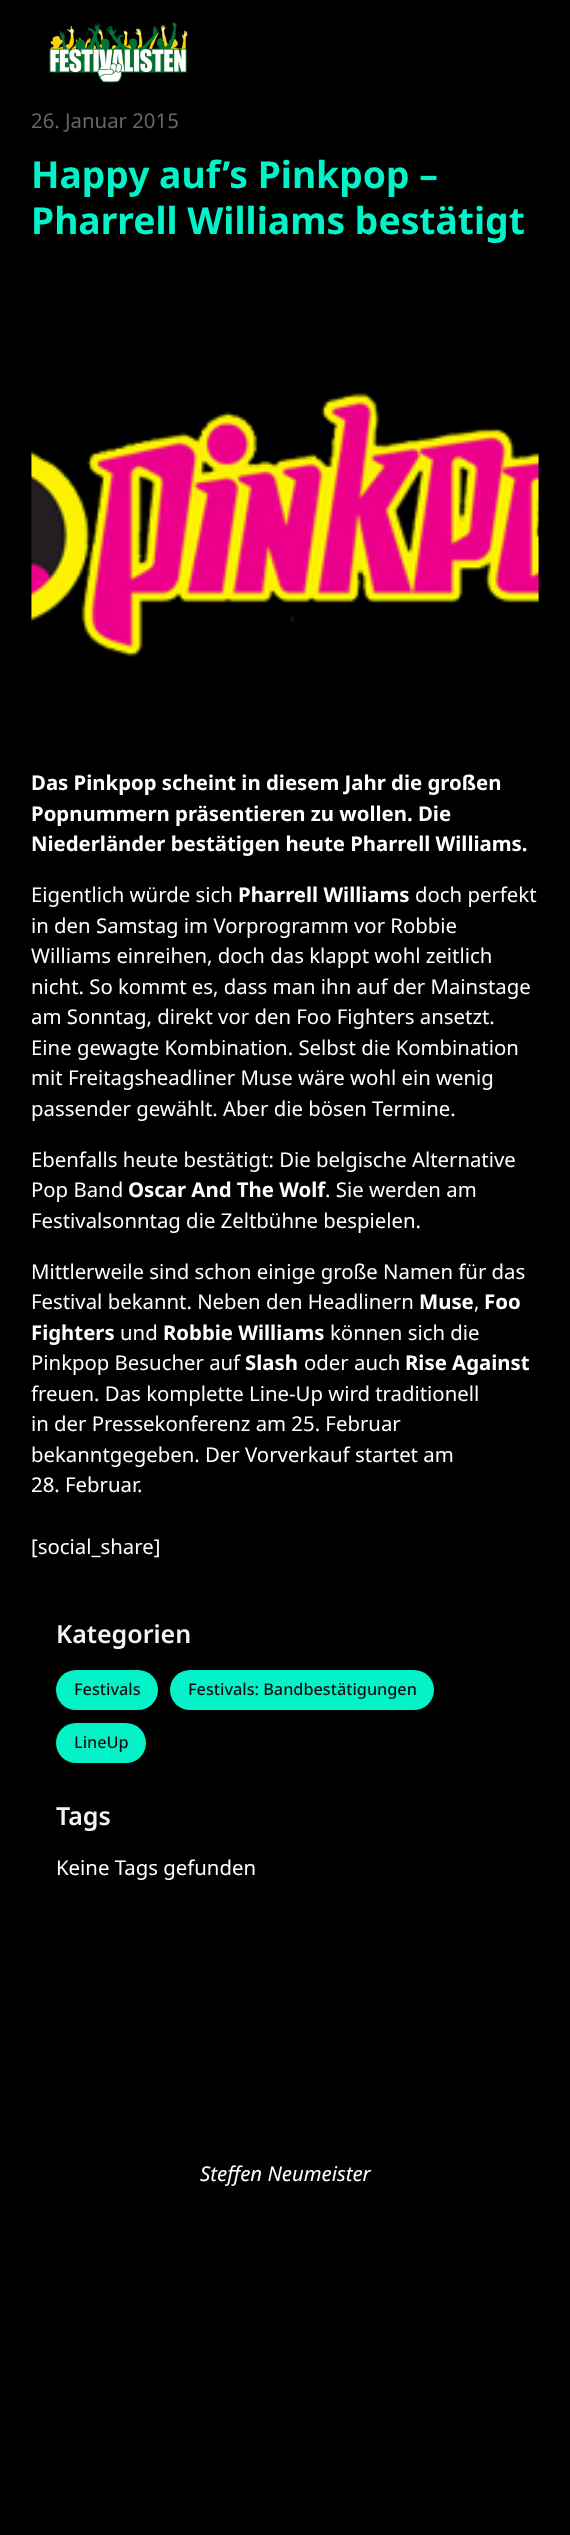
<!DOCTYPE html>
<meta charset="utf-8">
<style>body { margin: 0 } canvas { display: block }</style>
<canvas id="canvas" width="570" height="2535"></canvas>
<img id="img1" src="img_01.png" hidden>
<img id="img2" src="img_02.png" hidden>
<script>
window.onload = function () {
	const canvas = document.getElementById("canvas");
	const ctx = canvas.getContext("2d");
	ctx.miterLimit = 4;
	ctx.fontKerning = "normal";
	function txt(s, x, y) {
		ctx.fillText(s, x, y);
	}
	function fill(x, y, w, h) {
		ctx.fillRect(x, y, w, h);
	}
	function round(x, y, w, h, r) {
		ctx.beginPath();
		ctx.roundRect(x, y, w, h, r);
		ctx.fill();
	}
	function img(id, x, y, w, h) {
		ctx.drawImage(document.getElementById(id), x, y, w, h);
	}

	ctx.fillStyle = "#000000";
	fill(0, 0, 570, 2535);
	img("img1", 49, 22, 139, 61);
	img("img2", 31, 392, 508, 265);
	ctx.fillStyle = "#04F2C7";
	round(56, 1670, 102, 40, 20);
	round(170, 1670, 264, 40, 20);
	round(56, 1723, 90, 40, 20);
	ctx.font = "20.35px Noto Sans";
	ctx.fillStyle = "#666666";
	txt("26. Januar 2015", 31, 128);
	ctx.font = "bold 37.25px Noto Sans";
	ctx.fillStyle = "#04F2C7";
	txt("Happy auf’s Pinkpop –", 31, 188);
	txt("Pharrell Williams bestätigt", 31, 234);
	ctx.font = "bold 20.35px Noto Sans";
	ctx.fillStyle = "#FFFFFF";
	txt("Das Pinkpop scheint in diesem Jahr die großen", 31, 790);
	txt("Popnummern präsentieren zu wollen. Die", 31, 821);
	txt("Niederländer bestätigen heute Pharrell Williams.", 31, 851);
	ctx.font = "20.35px Noto Sans";
	txt("Eigentlich würde sich", 31, 902);
	ctx.font = "bold 20.35px Noto Sans";
	txt("Pharrell Williams", 238, 902);
	ctx.font = "20.35px Noto Sans";
	txt("doch perfekt", 415, 902);
	txt("in den Samstag im Vorprogramm vor Robbie", 31, 933);
	txt("Williams einreihen, doch das klappt wohl zeitlich", 31, 963);
	txt("nicht. So kommt es, dass man ihn auf der Mainstage", 31, 994);
	txt("am Sonntag, direkt vor den Foo Fighters ansetzt.", 31, 1024);
	txt("Eine gewagte Kombination. Selbst die Kombination", 31, 1055);
	txt("mit Freitagsheadliner Muse wäre wohl ein wenig", 31, 1085);
	txt("passender gewählt. Aber die bösen Termine.", 31, 1116);
	txt("Ebenfalls heute bestätigt: Die belgische Alternative", 31, 1167);
	txt("Pop Band", 31, 1197);
	ctx.font = "bold 20.35px Noto Sans";
	txt("Oscar And The Wolf", 128, 1197);
	ctx.font = "20.35px Noto Sans";
	txt(". Sie werden am", 325, 1197);
	txt("Festivalsonntag die Zeltbühne bespielen.", 31, 1228);
	txt("Mittlerweile sind schon einige große Namen für das", 31, 1279);
	txt("Festival bekannt. Neben den Headlinern", 31, 1309);
	ctx.font = "bold 20.35px Noto Sans";
	txt("Muse", 419, 1309);
	ctx.font = "20.35px Noto Sans";
	txt(",", 474, 1309);
	ctx.font = "bold 20.35px Noto Sans";
	txt("Foo", 484, 1309);
	txt("Fighters", 31, 1340);
	ctx.font = "20.35px Noto Sans";
	txt("und", 120, 1340);
	ctx.font = "bold 20.35px Noto Sans";
	txt("Robbie Williams", 163, 1340);
	ctx.font = "20.35px Noto Sans";
	txt("können sich die", 330, 1340);
	txt("Pinkpop Besucher auf", 31, 1370);
	ctx.font = "bold 20.35px Noto Sans";
	txt("Slash", 245, 1370);
	ctx.font = "20.35px Noto Sans";
	txt("oder auch", 304, 1370);
	ctx.font = "bold 20.35px Noto Sans";
	txt("Rise Against", 405, 1370);
	ctx.font = "20.35px Noto Sans";
	txt("freuen. Das komplette Line-Up wird traditionell", 31, 1401);
	txt("in der Pressekonferenz am 25. Februar", 31, 1431);
	txt("bekanntgegeben. Der Vorverkauf startet am", 31, 1462);
	txt("28. Februar.", 31, 1492);
	txt("[social_share]", 31, 1554);
	ctx.font = "600 25px Noto Sans";
	ctx.fillStyle = "#F3F3F3";
	txt("Kategorien", 56, 1643);
	ctx.font = "500 16.25px Noto Sans";
	ctx.fillStyle = "#111111";
	txt("Festivals", 74, 1695);
	txt("Festivals: Bandbestätigungen", 188, 1695);
	txt("LineUp", 74, 1748);
	ctx.font = "600 25px Noto Sans";
	ctx.fillStyle = "#F3F3F3";
	txt("Tags", 56, 1825);
	ctx.font = "20.35px Noto Sans";
	ctx.fillStyle = "#FFFFFF";
	txt("Keine Tags gefunden", 56, 1875);
	ctx.font = "italic 20.35px Noto Sans";
	txt("Steffen Neumeister", 200, 2181);
};
</script>
